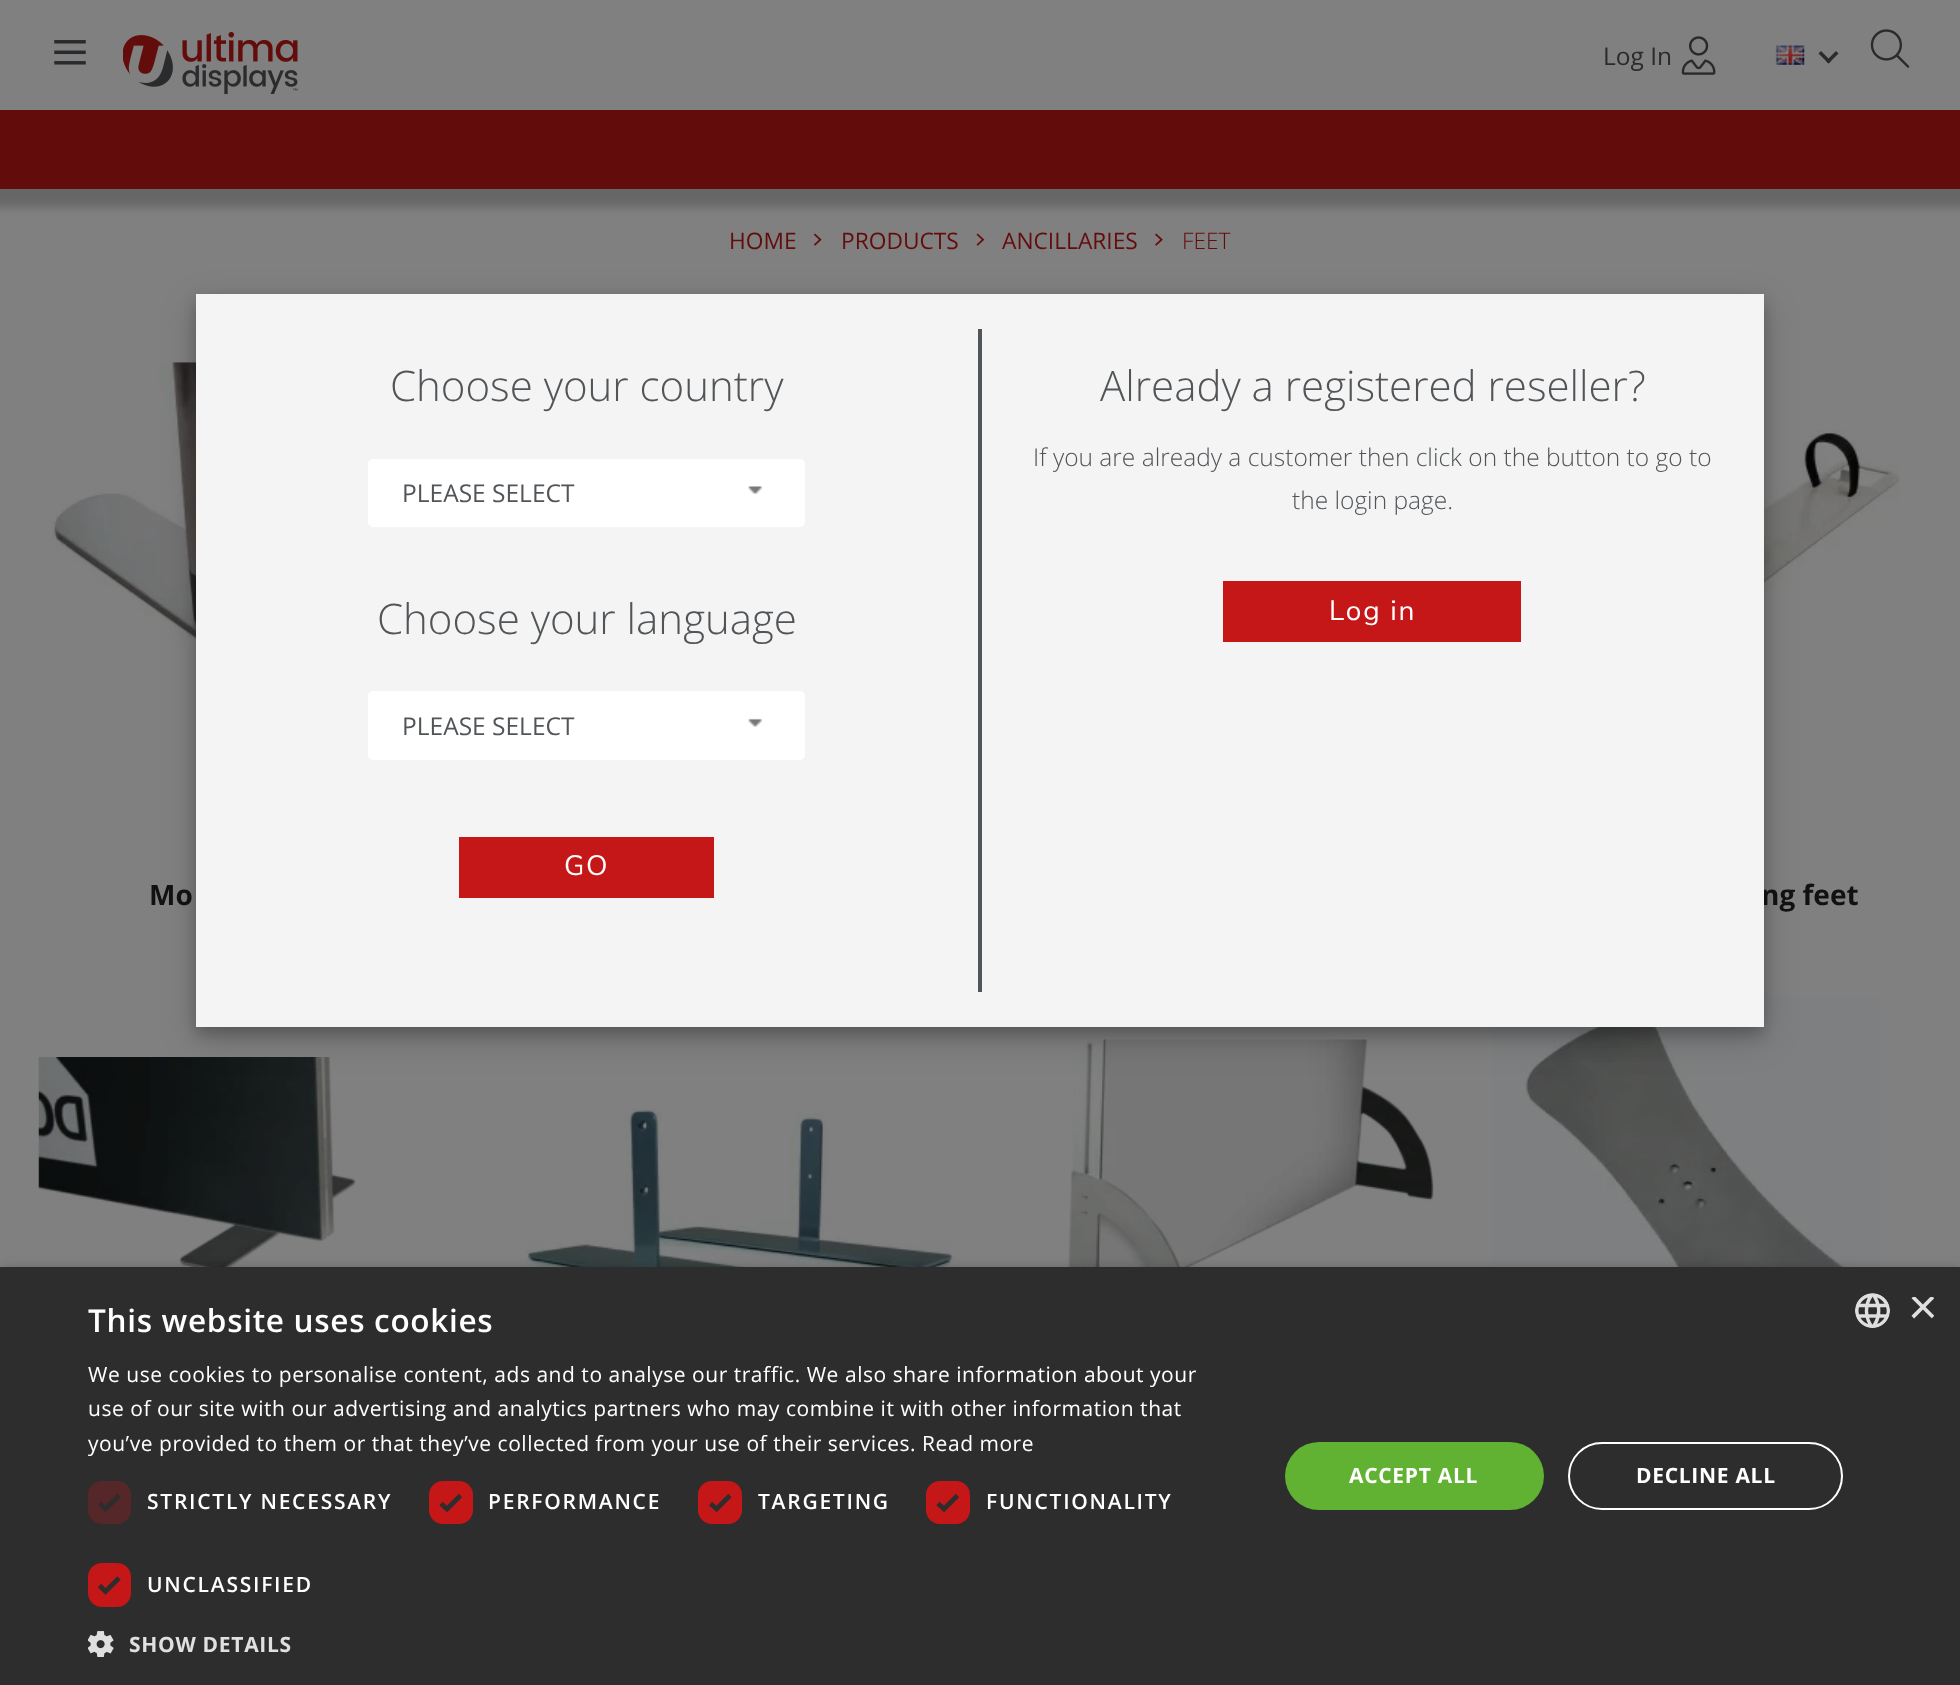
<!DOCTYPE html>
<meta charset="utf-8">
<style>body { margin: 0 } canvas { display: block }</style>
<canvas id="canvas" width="1960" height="1685"></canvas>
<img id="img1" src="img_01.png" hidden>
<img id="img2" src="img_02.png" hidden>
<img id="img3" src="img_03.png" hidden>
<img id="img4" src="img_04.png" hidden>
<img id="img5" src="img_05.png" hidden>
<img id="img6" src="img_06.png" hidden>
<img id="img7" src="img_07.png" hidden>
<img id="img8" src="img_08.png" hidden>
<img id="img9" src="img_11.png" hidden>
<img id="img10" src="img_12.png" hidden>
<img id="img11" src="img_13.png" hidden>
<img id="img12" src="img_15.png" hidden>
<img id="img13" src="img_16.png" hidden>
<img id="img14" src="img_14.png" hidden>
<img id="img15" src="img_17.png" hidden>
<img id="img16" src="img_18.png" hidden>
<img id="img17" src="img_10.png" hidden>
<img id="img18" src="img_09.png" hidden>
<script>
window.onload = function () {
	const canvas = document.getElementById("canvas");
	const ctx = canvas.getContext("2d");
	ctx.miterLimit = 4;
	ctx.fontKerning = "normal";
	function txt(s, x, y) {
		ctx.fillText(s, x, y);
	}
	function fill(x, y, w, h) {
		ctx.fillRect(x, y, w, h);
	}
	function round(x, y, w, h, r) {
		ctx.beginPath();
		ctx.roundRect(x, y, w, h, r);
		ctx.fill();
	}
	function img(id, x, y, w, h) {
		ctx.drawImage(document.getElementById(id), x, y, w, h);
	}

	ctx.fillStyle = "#808080";
	fill(0, 0, 1960, 1685);
	ctx.fillStyle = "rgba(0, 0, 0, 0.2)";
	ctx.filter = "blur(4.5px)";
	ctx.beginPath();
	ctx.rect(-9, 0, 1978, 207);
	ctx.fill();
	ctx.filter = "none";
	ctx.fillStyle = "#630C0C";
	fill(0, 110, 1960, 79);
	ctx.fillStyle = "#808080";
	fill(0, 0, 1960, 110);
	img("img1", 54, 40, 32, 25);
	img("img2", 123, 32, 175, 63);
	img("img3", 1681, 36, 35, 39);
	img("img4", 1775, 45, 30, 20);
	ctx.fillStyle = "#292B2C";
	ctx.beginPath();
	ctx.moveTo(1836, 51);
	ctx.lineTo(1838.5, 53.5);
	ctx.lineTo(1828.5, 63.5);
	ctx.lineTo(1826, 61);
	ctx.closePath();
	ctx.fill();
	ctx.beginPath();
	ctx.moveTo(1821, 51);
	ctx.lineTo(1831, 61);
	ctx.lineTo(1828.5, 63.5);
	ctx.lineTo(1818.5, 53.5);
	ctx.closePath();
	ctx.fill();
	img("img5", 1870, 29, 40, 39);
	img("img6", 813, 233, 9, 13);
	img("img7", 976, 233, 9, 13);
	img("img8", 1155, 233, 8, 13);
	img("img9", 51, 362, 145, 406);
	img("img10", 1764, 430, 136, 313);
	img("img11", 38, 1057, 318, 210);
	img("img12", 1068, 1039, 366, 228);
	img("img13", 1493, 998, 388, 269);
	ctx.fillStyle = "rgba(0, 0, 0, 0.19)";
	ctx.filter = "blur(17.5px)";
	ctx.beginPath();
	ctx.rect(196, 305, 1568, 733);
	ctx.fill();
	ctx.filter = "none";
	ctx.fillStyle = "rgba(0, 0, 0, 0.2)";
	ctx.filter = "blur(7px)";
	ctx.beginPath();
	ctx.rect(196, 301, 1568, 733);
	ctx.fill();
	ctx.filter = "none";
	img("img14", 526, 1108, 429, 159);
	ctx.fillStyle = "rgba(0, 0, 0, 0.35)";
	ctx.filter = "blur(7px)";
	ctx.beginPath();
	ctx.rect(2, 1271, 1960, 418);
	ctx.fill();
	ctx.filter = "none";
	ctx.fillStyle = "#2D2D2D";
	fill(0, 1267, 1960, 418);
	ctx.fillStyle = "#552728";
	round(88, 1481, 43, 43, 14);
	ctx.beginPath();
	ctx.moveTo(99.5, 1503.5);
	ctx.lineTo(105.5, 1509);
	ctx.lineTo(119, 1495.5);
	ctx.strokeStyle = "#2D2D2D";
	ctx.lineWidth = 4.6;
	ctx.stroke();
	ctx.fillStyle = "#C51718";
	ctx.beginPath();
	ctx.roundRect(431, 1483, 40, 39, 12);
	ctx.fill();
	ctx.strokeStyle = "#C51718";
	ctx.lineWidth = 4;
	ctx.stroke();
	ctx.beginPath();
	ctx.moveTo(441, 1503.5);
	ctx.lineTo(447, 1509);
	ctx.lineTo(460.5, 1495.5);
	ctx.strokeStyle = "#2D2D2D";
	ctx.lineWidth = 4.6;
	ctx.stroke();
	ctx.beginPath();
	ctx.roundRect(700, 1483, 40, 39, 12);
	ctx.fill();
	ctx.strokeStyle = "#C51718";
	ctx.lineWidth = 4;
	ctx.stroke();
	ctx.beginPath();
	ctx.moveTo(710.5, 1503.5);
	ctx.lineTo(716.5, 1509);
	ctx.lineTo(730, 1495.5);
	ctx.strokeStyle = "#2D2D2D";
	ctx.lineWidth = 4.6;
	ctx.stroke();
	ctx.beginPath();
	ctx.roundRect(928, 1483, 40, 39, 12);
	ctx.fill();
	ctx.strokeStyle = "#C51718";
	ctx.lineWidth = 4;
	ctx.stroke();
	ctx.beginPath();
	ctx.moveTo(938, 1503.5);
	ctx.lineTo(944, 1509);
	ctx.lineTo(957.5, 1495.5);
	ctx.strokeStyle = "#2D2D2D";
	ctx.lineWidth = 4.6;
	ctx.stroke();
	ctx.beginPath();
	ctx.roundRect(90, 1565, 39, 40, 12);
	ctx.fill();
	ctx.strokeStyle = "#C51718";
	ctx.lineWidth = 4;
	ctx.stroke();
	ctx.beginPath();
	ctx.moveTo(99.5, 1585.5);
	ctx.lineTo(105.5, 1591.5);
	ctx.lineTo(119, 1578);
	ctx.strokeStyle = "#2D2D2D";
	ctx.lineWidth = 4.6;
	ctx.stroke();
	img("img15", 88, 1631, 26, 26);
	ctx.fillStyle = "#61B232";
	round(1285, 1442, 259, 68, 34);
	ctx.beginPath();
	ctx.roundRect(1569, 1443, 273, 66, 33);
	ctx.strokeStyle = "#FFFFFF";
	ctx.lineWidth = 2;
	ctx.stroke();
	img("img16", 1855, 1293, 35, 35);
	ctx.font = "24.5px Open Sans";
	ctx.fillStyle = "#292B2C";
	txt("Log In", 1603, 65);
	ctx.font = "22.75px Open Sans";
	ctx.fillStyle = "#630C0C";
	txt("HOME", 729, 249);
	txt("PRODUCTS", 841, 249);
	txt("ANCILLARIES", 1002, 249);
	ctx.font = "300 22.75px Open Sans";
	txt("FEET", 1182, 249);
	ctx.font = "bold 28px Open Sans";
	ctx.fillStyle = "#111111";
	txt("Mo", 149, 905);
	txt("ng feet", 1761, 905);
	ctx.fillStyle = "#F4F4F4";
	fill(196, 294, 1568, 733);
	ctx.fillStyle = "#FFFFFF";
	round(368, 691, 437, 69, 5);
	img("img17", 748, 718, 15, 9);
	ctx.font = "24.5px Open Sans";
	ctx.fillStyle = "#515558";
	txt("PLEASE SELECT", 402, 735);
	ctx.fillStyle = "#FFFFFF";
	round(368, 459, 437, 68, 5);
	img("img18", 748, 486, 15, 8);
	ctx.fillStyle = "#515558";
	txt("PLEASE SELECT", 402, 502);
	ctx.fillStyle = "#C51718";
	fill(1223, 581, 298, 61);
	ctx.letterSpacing = "1.75px";
	ctx.font = "28px Nunito Sans";
	ctx.fillStyle = "#FFFFFF";
	txt("Log in", 1329, 620);
	ctx.letterSpacing = "0px";
	ctx.font = "300 24.5px Open Sans";
	ctx.fillStyle = "#515558";
	txt("the login page.", 1292, 509);
	txt("If you are already a customer then click on the button to go to", 1033, 466);
	ctx.font = "300 42px Open Sans";
	txt("Already a registered reseller?", 1100, 401);
	ctx.fillStyle = "#C51718";
	fill(459, 837, 255, 61);
	ctx.letterSpacing = "1.75px";
	ctx.font = "28px Nunito Sans";
	ctx.fillStyle = "#FFFFFF";
	txt("GO", 564, 875);
	ctx.letterSpacing = "0px";
	ctx.font = "300 42px Open Sans";
	ctx.fillStyle = "#515558";
	txt("Choose your language", 377, 634);
	txt("Choose your country", 390, 401);
	fill(978, 329, 4, 663);
	ctx.letterSpacing = "0.7px";
	ctx.font = "600 31.5px Open Sans";
	ctx.fillStyle = "#FFFFFF";
	txt("This website uses cookies", 88, 1332);
	ctx.letterSpacing = "0.53px";
	ctx.font = "21px Open Sans";
	txt("We use cookies to personalise content, ads and to analyse our traffic. We also share information about your", 88, 1382);
	txt("use of our site with our advertising and analytics partners who may combine it with other information that", 88, 1416);
	txt("you’ve provided to them or that they’ve collected from your use of their services. Read more", 88, 1451);
	ctx.letterSpacing = "1.75px";
	ctx.font = "600 21px Open Sans";
	txt("STRICTLY NECESSARY", 147, 1509);
	txt("PERFORMANCE", 488, 1509);
	txt("TARGETING", 758, 1509);
	txt("FUNCTIONALITY", 986, 1509);
	txt("UNCLASSIFIED", 147, 1592);
	ctx.letterSpacing = "0.7px";
	ctx.font = "bold 21px Open Sans";
	ctx.fillStyle = "#E0E0E0";
	txt("SHOW DETAILS", 129, 1652);
	ctx.fillStyle = "#FFFFFF";
	txt("ACCEPT ALL", 1349, 1483);
	txt("DECLINE ALL", 1636, 1483);
	ctx.save();
	ctx.beginPath();
	ctx.rect(1908, 1297, 26, 26);
	ctx.clip();
	ctx.letterSpacing = "0px";
	ctx.font = "51px Liberation Sans";
	ctx.fillStyle = "#E0E0E0";
	txt("×", 1908, 1324);
	ctx.restore();
};
</script>
